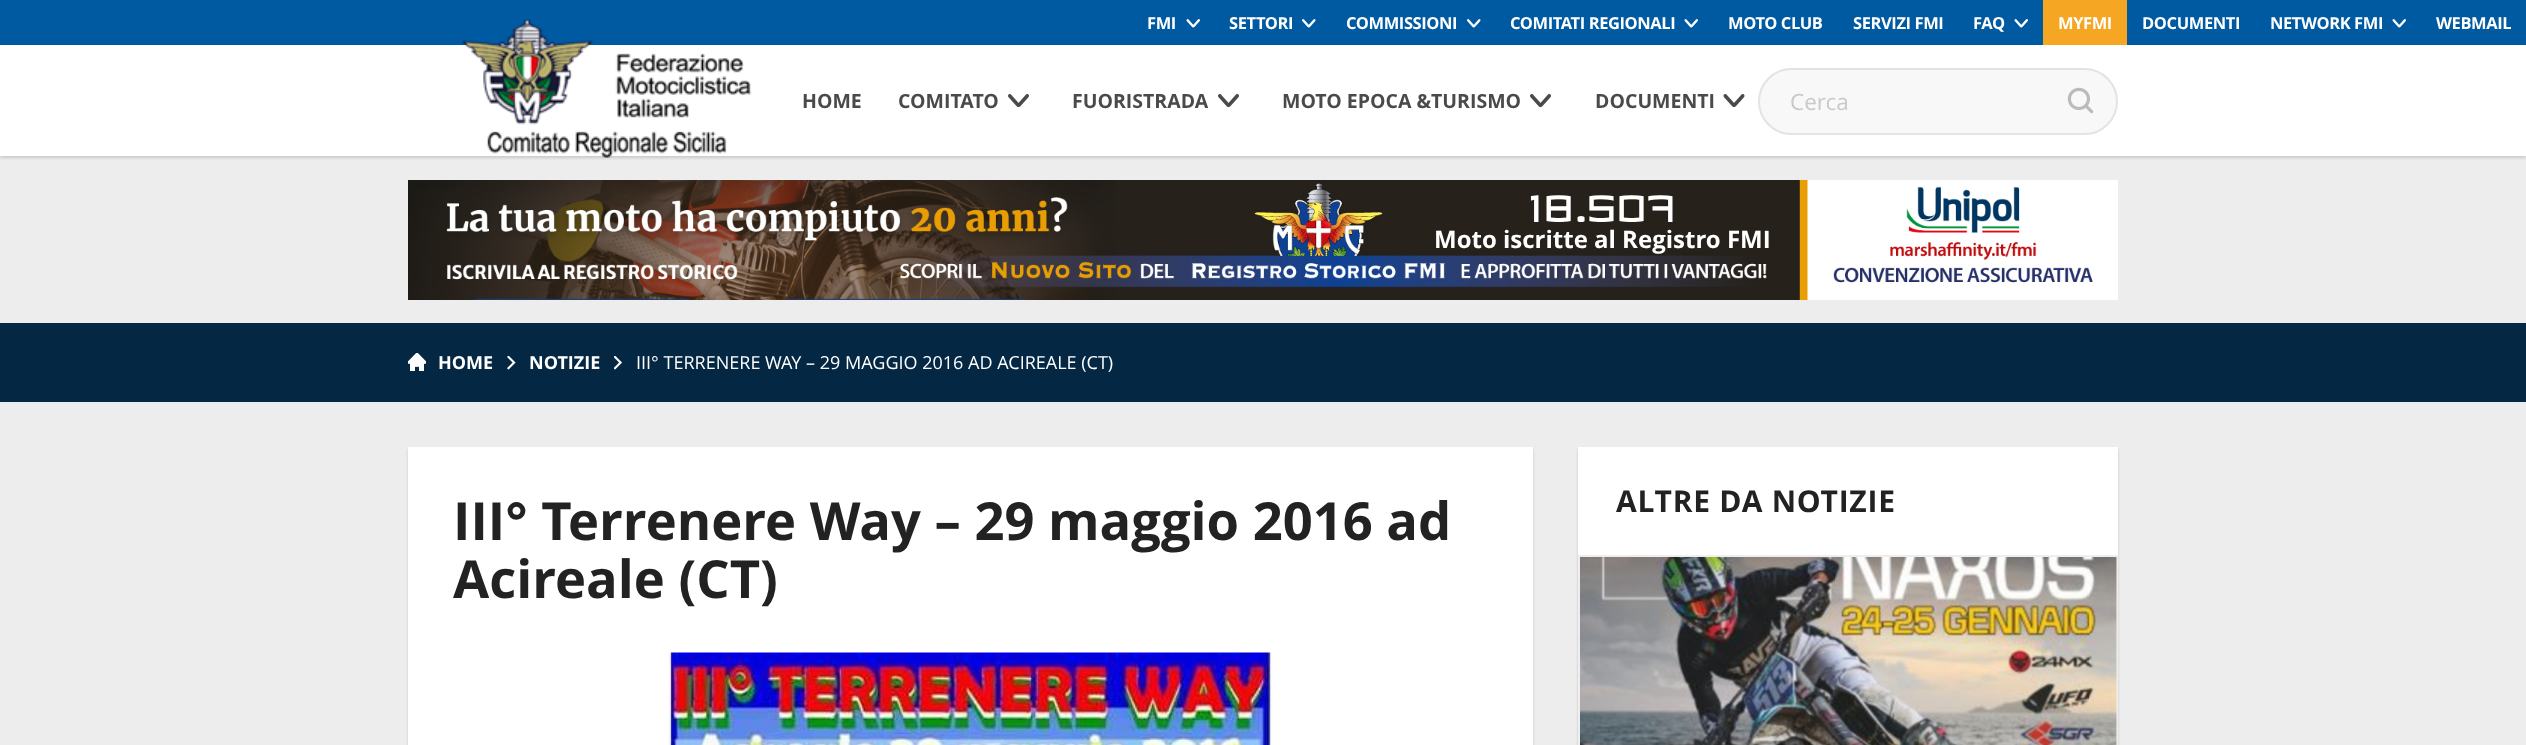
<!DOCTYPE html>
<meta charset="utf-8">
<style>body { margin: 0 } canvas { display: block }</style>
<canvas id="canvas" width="2526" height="745"></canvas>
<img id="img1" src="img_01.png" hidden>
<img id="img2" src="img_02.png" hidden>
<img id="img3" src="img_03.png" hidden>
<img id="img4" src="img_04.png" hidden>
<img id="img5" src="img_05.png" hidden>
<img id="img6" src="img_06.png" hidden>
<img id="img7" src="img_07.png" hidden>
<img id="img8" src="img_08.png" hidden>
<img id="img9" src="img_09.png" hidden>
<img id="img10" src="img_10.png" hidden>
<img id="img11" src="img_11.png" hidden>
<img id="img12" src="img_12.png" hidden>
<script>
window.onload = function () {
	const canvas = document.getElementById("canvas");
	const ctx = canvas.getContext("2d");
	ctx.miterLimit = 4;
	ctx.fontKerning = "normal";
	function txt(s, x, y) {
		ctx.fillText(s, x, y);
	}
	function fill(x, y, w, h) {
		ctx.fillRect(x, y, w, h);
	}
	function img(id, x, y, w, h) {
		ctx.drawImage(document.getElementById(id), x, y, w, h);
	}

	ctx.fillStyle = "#EDEDED";
	fill(0, 0, 2526, 745);
	ctx.fillStyle = "#005AA1";
	fill(0, 0, 2526, 45);
	img("img1", 1186, 19, 14, 9);
	img("img2", 1302, 19, 14, 9);
	img("img2", 1467, 19, 14, 9);
	img("img1", 1684, 19, 14, 9);
	img("img1", 2014, 19, 14, 9);
	ctx.fillStyle = "rgba(0, 0, 0, 0.15)";
	ctx.filter = "blur(1.5px)";
	ctx.beginPath();
	ctx.rect(0, 47, 2526, 111);
	ctx.fill();
	ctx.filter = "none";
	ctx.fillStyle = "#F5A623";
	fill(2043, 0, 84, 45);
	img("img1", 2392, 19, 14, 9);
	ctx.fillStyle = "#FFFFFF";
	fill(0, 45, 2526, 111);
	img("img3", 461, 19, 291, 139);
	img("img4", 1008, 94, 21, 14);
	img("img4", 1218, 94, 21, 14);
	img("img4", 1530, 94, 21, 14);
	img("img5", 1723, 94, 22, 13);
	ctx.fillStyle = "#F8F8F8";
	ctx.beginPath();
	ctx.roundRect(1759, 69, 358, 65, 32.5);
	ctx.fill();
	ctx.strokeStyle = "#E3E3E3";
	ctx.lineWidth = 2;
	ctx.stroke();
	img("img6", 2067, 87, 27, 27);
	img("img7", 408, 180, 1710, 120);
	ctx.fillStyle = "#042844";
	fill(0, 323, 2526, 79);
	img("img8", 408, 353, 18, 18);
	img("img9", 507, 356, 9, 14);
	img("img10", 614, 356, 8, 14);
	ctx.fillStyle = "rgba(0, 0, 0, 0.15)";
	ctx.filter = "blur(1.5px)";
	ctx.beginPath();
	ctx.rect(408, 449, 1125, 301);
	ctx.fill();
	ctx.filter = "none";
	ctx.fillStyle = "#FFFFFF";
	fill(408, 447, 1125, 298);
	img("img11", 667, 652, 607, 93);
	ctx.fillStyle = "rgba(0, 0, 0, 0.15)";
	ctx.filter = "blur(1.5px)";
	ctx.beginPath();
	ctx.rect(1578, 449, 540, 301);
	ctx.fill();
	ctx.filter = "none";
	ctx.fillStyle = "#FFFFFF";
	fill(1578, 447, 540, 108);
	ctx.strokeStyle = "#EEEEEE";
	ctx.strokeRect(1579, 556, 538, 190);
	img("img12", 1580, 557, 537, 188);
	ctx.letterSpacing = "-0.4px";
	ctx.font = "bold 16.5px Open Sans";
	txt("FMI", 1147, 29);
	txt("SETTORI", 1229, 29);
	txt("COMMISSIONI", 1346, 29);
	txt("COMITATI REGIONALI", 1510, 29);
	txt("MOTO CLUB", 1728, 29);
	txt("SERVIZI FMI", 1853, 29);
	txt("FAQ", 1973, 29);
	txt("MYFMI", 2058, 29);
	txt("DOCUMENTI", 2142, 29);
	txt("NETWORK FMI", 2270, 29);
	txt("WEBMAIL", 2436, 29);
	ctx.letterSpacing = "0px";
	ctx.font = "bold 19.5px Open Sans";
	ctx.fillStyle = "#4A4A4A";
	txt("HOME", 802, 108);
	txt("COMITATO", 898, 108);
	txt("FUORISTRADA", 1072, 108);
	txt("MOTO EPOCA &TURISMO", 1282, 108);
	txt("DOCUMENTI", 1595, 108);
	ctx.font = "22.5px Open Sans";
	ctx.fillStyle = "#C9C9C9";
	txt("Cerca", 1790, 110);
	ctx.font = "36px Revalia";
	ctx.fillStyle = "#FFFFFF";
	txt("18.507", 1528, 222);
	ctx.font = "bold 24px Open Sans";
	txt("Moto iscritte al Registro FMI", 1434, 248);
	ctx.font = "bold 18px Open Sans";
	txt("HOME", 438, 369);
	txt("NOTIZIE", 529, 369);
	ctx.font = "18px Open Sans";
	txt("III° TERRENERE WAY – 29 MAGGIO 2016 AD ACIREALE (CT)", 636, 369);
	ctx.font = "bold 52.5px Open Sans";
	ctx.fillStyle = "#222222";
	txt("III° Terrenere Way – 29 maggio 2016 ad", 453, 540);
	txt("Acireale (CT)", 453, 598);
	ctx.letterSpacing = "0.75px";
	ctx.font = "bold 30px Open Sans";
	txt("ALTRE DA NOTIZIE", 1616, 512);
};
</script>
